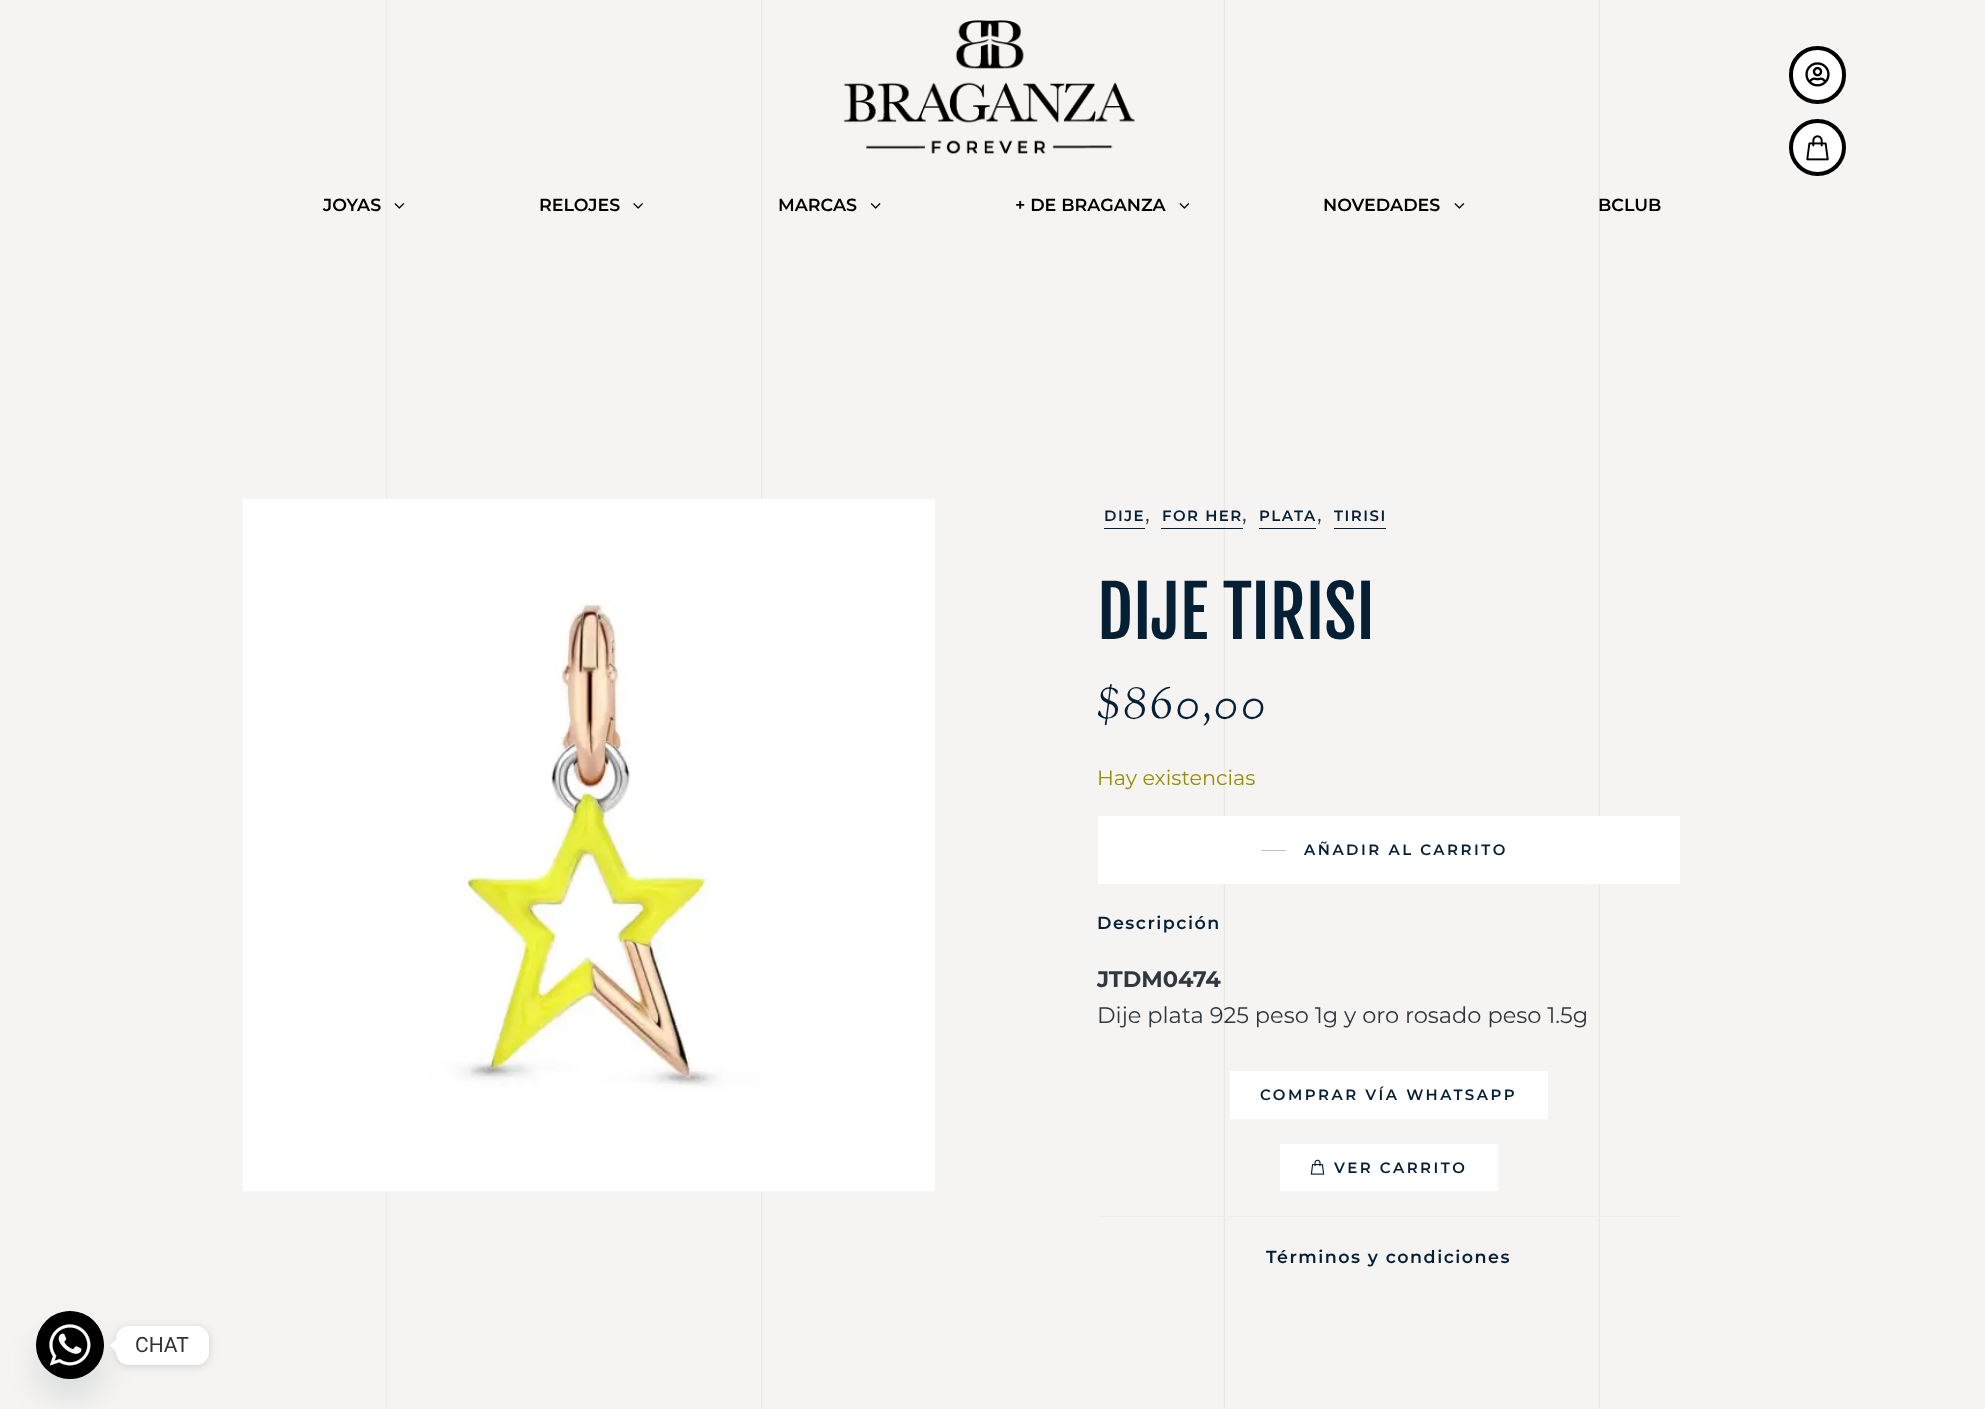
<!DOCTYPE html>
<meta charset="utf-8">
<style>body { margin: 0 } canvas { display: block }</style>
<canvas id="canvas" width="1985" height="1409"></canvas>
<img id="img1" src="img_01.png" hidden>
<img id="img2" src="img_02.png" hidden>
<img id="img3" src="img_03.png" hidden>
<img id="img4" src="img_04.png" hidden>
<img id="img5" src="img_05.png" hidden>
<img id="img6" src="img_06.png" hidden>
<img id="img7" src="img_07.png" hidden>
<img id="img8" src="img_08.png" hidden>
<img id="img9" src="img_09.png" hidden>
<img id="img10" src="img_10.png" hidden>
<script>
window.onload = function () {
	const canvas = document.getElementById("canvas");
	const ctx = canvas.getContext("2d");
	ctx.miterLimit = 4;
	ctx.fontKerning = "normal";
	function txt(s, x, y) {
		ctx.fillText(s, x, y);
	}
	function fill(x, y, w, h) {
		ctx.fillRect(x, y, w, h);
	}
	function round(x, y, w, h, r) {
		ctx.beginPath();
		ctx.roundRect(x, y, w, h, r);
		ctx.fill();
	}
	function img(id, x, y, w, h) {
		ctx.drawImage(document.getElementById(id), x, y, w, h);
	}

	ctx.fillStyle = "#F6F4F2";
	fill(0, 0, 1985, 1409);
	img("img1", 386, 0, 1214, 1409);
	img("img2", 843, 20, 292, 134);
	ctx.fillStyle = "#FFFFFF";
	ctx.beginPath();
	ctx.roundRect(1791, 48, 53, 54, 26.5);
	ctx.fill();
	ctx.strokeStyle = "#000000";
	ctx.lineWidth = 4;
	ctx.stroke();
	img("img3", 1805, 62, 25, 25);
	ctx.beginPath();
	ctx.arc(1817.5, 147.5, 26.5, 0, Math.PI * 2);
	ctx.fill();
	ctx.stroke();
	img("img4", 1806, 135, 23, 26);
	img("img5", 394, 203, 11, 6);
	img("img6", 633, 203, 10, 6);
	img("img7", 870, 203, 11, 6);
	img("img5", 1179, 203, 11, 6);
	img("img5", 1454, 203, 11, 6);
	img("img8", 242, 499, 693, 693);
	ctx.fillStyle = "#051F34";
	fill(1104, 528, 41, 1);
	fill(1161, 528, 82, 1);
	fill(1259, 528, 57, 1);
	fill(1334, 528, 52, 1);
	ctx.fillStyle = "#FFFFFF";
	fill(1098, 816, 582, 68);
	ctx.fillStyle = "#C6BCB7";
	round(1261, 850, 25, 1, 0.5);
	ctx.fillStyle = "#FFFFFF";
	fill(1230, 1071, 318, 48);
	fill(1280, 1144, 218, 47);
	img("img9", 1310, 1159, 15, 16);
	ctx.fillStyle = "#EDEDED";
	fill(1098, 1216, 582, 1);
	ctx.fillStyle = "rgba(73, 104, 126, 0.16)";
	ctx.filter = "blur(15px)";
	ctx.beginPath();
	ctx.roundRect(36, 1331, 68, 68, 34);
	ctx.fill();
	ctx.filter = "none";
	ctx.fillStyle = "#000000";
	ctx.beginPath();
	ctx.arc(70, 1345, 34, 0, Math.PI * 2);
	ctx.fill();
	img("img10", 36, 1311, 68, 68);
	ctx.fillStyle = "rgba(0, 0, 0, 0.15)";
	ctx.filter = "blur(5px)";
	ctx.beginPath();
	ctx.roundRect(116, 1328, 93, 38, 13);
	ctx.fill();
	ctx.filter = "none";
	ctx.fillStyle = "#FFFFFF";
	round(116, 1326, 93, 39, 13);
	ctx.beginPath();
	ctx.moveTo(116, 1339.5);
	ctx.lineTo(116, 1352);
	ctx.lineTo(110, 1345.5);
	ctx.closePath();
	ctx.fill();
	ctx.font = "600 17.5px Montserrat";
	ctx.fillStyle = "#000000";
	txt("JOYAS", 323, 211);
	txt("RELOJES", 539, 211);
	txt("MARCAS", 778, 211);
	txt("+ DE BRAGANZA", 1015, 211);
	txt("NOVEDADES", 1323, 211);
	txt("BCLUB", 1598, 211);
	ctx.letterSpacing = "1.5px";
	ctx.font = "600 15px Montserrat";
	ctx.fillStyle = "#051F34";
	txt("DIJE", 1104, 521);
	ctx.letterSpacing = "0px";
	ctx.font = "22.5px Montserrat";
	ctx.fillStyle = "#30373E";
	txt(",", 1145, 521);
	ctx.letterSpacing = "1.5px";
	ctx.font = "600 15px Montserrat";
	ctx.fillStyle = "#051F34";
	txt("FOR HER", 1162, 521);
	ctx.letterSpacing = "0px";
	ctx.font = "22.5px Montserrat";
	ctx.fillStyle = "#30373E";
	txt(",", 1242, 521);
	ctx.letterSpacing = "1.5px";
	ctx.font = "600 15px Montserrat";
	ctx.fillStyle = "#051F34";
	txt("PLATA", 1259, 521);
	ctx.letterSpacing = "0px";
	ctx.font = "22.5px Montserrat";
	ctx.fillStyle = "#30373E";
	txt(",", 1317, 521);
	ctx.letterSpacing = "1.5px";
	ctx.font = "600 15px Montserrat";
	ctx.fillStyle = "#051F34";
	txt("TIRISI", 1334, 521);
	ctx.letterSpacing = "0px";
	ctx.font = "70px Fjalla One";
	txt("DIJE TIRISI", 1097, 639);
	ctx.letterSpacing = "3.75px";
	ctx.font = "italic 45px Sorts Mill Goudy";
	txt("$860,00", 1097, 718);
	ctx.letterSpacing = "0px";
	ctx.font = "20.75px Montserrat";
	ctx.fillStyle = "#958E09";
	txt("Hay existencias", 1097, 785);
	ctx.letterSpacing = "2.5px";
	ctx.font = "600 15px Montserrat";
	ctx.fillStyle = "#051F34";
	txt("AÑADIR AL CARRITO", 1304, 855);
	ctx.letterSpacing = "1.5px";
	ctx.font = "600 17.5px Montserrat";
	txt("Descripción", 1097, 929);
	ctx.letterSpacing = "0px";
	ctx.font = "bold 22.5px Montserrat";
	ctx.fillStyle = "#30373E";
	txt("JTDM0474", 1097, 987);
	ctx.font = "22.5px Montserrat";
	txt("Dije plata 925 peso 1g y oro rosado peso 1.5g", 1097, 1023);
	ctx.letterSpacing = "2.5px";
	ctx.font = "600 15px Montserrat";
	ctx.fillStyle = "#051F34";
	txt("COMPRAR VÍA WHATSAPP", 1260, 1100);
	txt("VER CARRITO", 1334, 1173);
	ctx.letterSpacing = "1.5px";
	ctx.font = "600 17.5px Montserrat";
	txt("Términos y condiciones", 1266, 1263);
	ctx.letterSpacing = "0px";
	ctx.font = "21px Roboto";
	ctx.fillStyle = "#333333";
	txt("CHAT", 135, 1352);
};
</script>
